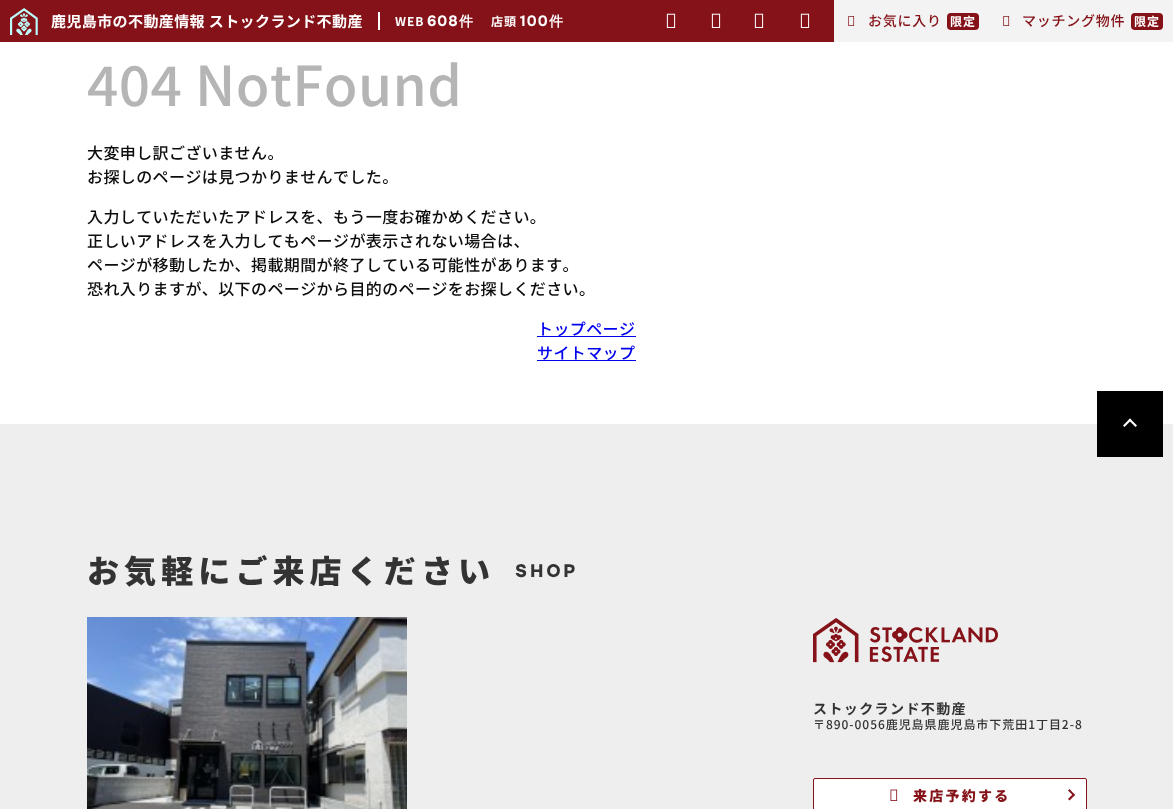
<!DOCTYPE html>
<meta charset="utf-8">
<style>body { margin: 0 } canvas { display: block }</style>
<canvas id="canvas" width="1173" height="809"></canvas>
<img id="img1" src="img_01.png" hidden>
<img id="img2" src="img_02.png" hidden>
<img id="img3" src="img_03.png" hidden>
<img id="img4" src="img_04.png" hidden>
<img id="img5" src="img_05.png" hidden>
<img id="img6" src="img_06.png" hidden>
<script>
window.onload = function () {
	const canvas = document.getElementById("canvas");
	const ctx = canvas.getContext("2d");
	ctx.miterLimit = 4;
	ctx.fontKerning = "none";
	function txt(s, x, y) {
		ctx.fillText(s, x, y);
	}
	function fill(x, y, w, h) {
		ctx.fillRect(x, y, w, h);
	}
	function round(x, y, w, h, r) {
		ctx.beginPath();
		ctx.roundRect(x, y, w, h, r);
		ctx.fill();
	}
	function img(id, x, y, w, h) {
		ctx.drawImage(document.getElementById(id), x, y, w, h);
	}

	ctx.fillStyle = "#FFFFFF";
	fill(0, 0, 1173, 809);
	ctx.fillStyle = "#841218";
	fill(0, 0, 834, 42);
	img("img1", 10, 8, 28, 27);
	ctx.fillStyle = "#FFFFFF";
	fill(378, 12, 2, 18);
	img("img2", 666, 13, 10, 15);
	img("img2", 711, 13, 10, 15);
	img("img2", 754, 13, 10, 15);
	img("img2", 800, 13, 10, 15);
	ctx.fillStyle = "#F3F3F3";
	fill(834, 0, 339, 42);
	img("img3", 848, 16, 7, 10);
	ctx.fillStyle = "#841218";
	round(947, 13, 32, 17, 4);
	img("img3", 1003, 16, 7, 10);
	round(1131, 13, 32, 17, 4);
	ctx.fillStyle = "#0000EE";
	fill(537, 336, 99, 1);
	fill(537, 360, 99, 1);
	ctx.fillStyle = "#EEEEEE";
	fill(0, 424, 1173, 385);
	ctx.fillStyle = "#000000";
	fill(1097, 391, 66, 66);
	ctx.fillStyle = "#FFFFFF";
	ctx.beginPath();
	ctx.moveTo(1123, 425.5);
	ctx.lineTo(1130, 418.5);
	ctx.lineTo(1131.5, 420);
	ctx.lineTo(1124.5, 427);
	ctx.closePath();
	ctx.fill();
	ctx.beginPath();
	ctx.moveTo(1128.5, 420);
	ctx.lineTo(1130, 418.5);
	ctx.lineTo(1137, 425.5);
	ctx.lineTo(1135.5, 427);
	ctx.closePath();
	ctx.fill();
	img("img4", 87, 617, 320, 192);
	img("img5", 813, 618, 185, 45);
	ctx.beginPath();
	ctx.roundRect(813.5, 778.5, 273, 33, 1.5);
	ctx.fill();
	ctx.strokeStyle = "#841218";
	ctx.stroke();
	img("img6", 890, 789, 8, 12);
	ctx.fillStyle = "#841218";
	ctx.beginPath();
	ctx.moveTo(1069.5, 789);
	ctx.lineTo(1075, 795);
	ctx.lineTo(1073.5, 796);
	ctx.lineTo(1068, 790.5);
	ctx.closePath();
	ctx.fill();
	ctx.beginPath();
	ctx.moveTo(1073.5, 793.5);
	ctx.lineTo(1075, 795);
	ctx.lineTo(1069.5, 800.5);
	ctx.lineTo(1068, 799);
	ctx.closePath();
	ctx.fill();
	ctx.letterSpacing = "0.4px";
	ctx.font = "bold 15px Noto Sans JP";
	ctx.fillStyle = "#FFFFFF";
	txt("鹿児島市の不動産情報 ストックランド不動産", 51, 27);
	ctx.letterSpacing = "1px";
	ctx.font = "bold 12px Noto Sans JP";
	txt("WEB", 395, 26);
	ctx.font = "bold 15px Onest";
	txt("608", 427, 26);
	ctx.font = "bold 14px WenQuanYi Zen Hei";
	txt("件", 459, 26);
	ctx.font = "bold 12px Noto Sans JP";
	txt("店頭", 491, 26);
	ctx.font = "bold 15px Onest";
	txt("100", 520, 26);
	ctx.font = "bold 14px WenQuanYi Zen Hei";
	txt("件", 549, 26);
	ctx.letterSpacing = "0.75px";
	ctx.font = "500 14px Noto Sans JP";
	ctx.fillStyle = "#841218";
	txt("お気に入り", 868, 26);
	ctx.letterSpacing = "1px";
	ctx.font = "bold 12px Noto Sans JP";
	ctx.fillStyle = "#FFFFFF";
	txt("限定", 950, 26);
	ctx.letterSpacing = "0.75px";
	ctx.font = "500 14px Noto Sans JP";
	ctx.fillStyle = "#841218";
	txt("マッチング物件", 1022, 26);
	ctx.letterSpacing = "1px";
	ctx.font = "bold 12px Noto Sans JP";
	ctx.fillStyle = "#FFFFFF";
	txt("限定", 1134, 26);
	ctx.letterSpacing = "0.4px";
	ctx.font = "500 55px Noto Sans JP";
	ctx.fillStyle = "#B5B5B5";
	txt("404 NotFound", 87, 106);
	ctx.font = "500 16px Noto Sans JP";
	ctx.fillStyle = "#0D0D0D";
	txt("大変申し訳ございません。", 87, 159);
	txt("お探しのページは見つかりませんでした。", 87, 183);
	txt("入力していただいたアドレスを、もう一度お確かめください。", 87, 223);
	txt("正しいアドレスを入力してもページが表示されない場合は、", 87, 247);
	txt("ページが移動したか、掲載期間が終了している可能性があります。", 87, 271);
	txt("恐れ入りますが、以下のページから目的のページをお探しください。", 87, 295);
	ctx.fillStyle = "#0000EE";
	txt("トップページ", 537, 335);
	txt("サイトマップ", 537, 359);
	ctx.letterSpacing = "5.1px";
	ctx.font = "900 32px Noto Sans JP";
	ctx.fillStyle = "#333333";
	txt("お気軽にご来店ください", 87, 583);
	ctx.letterSpacing = "3px";
	ctx.font = "800 18px Onest";
	txt("SHOP", 515, 577);
	ctx.letterSpacing = "1.4px";
	ctx.font = "bold 14px Noto Sans JP";
	txt("ストックランド不動産", 813, 714);
	ctx.letterSpacing = "0.95px";
	ctx.font = "500 12px Noto Sans JP";
	txt("〒890-0056鹿児島県鹿児島市下荒田1丁目2-8", 813, 729);
	ctx.letterSpacing = "2.25px";
	ctx.font = "900 14px Noto Sans JP";
	ctx.fillStyle = "#841218";
	txt("来店予約する", 913, 801);
};
</script>
